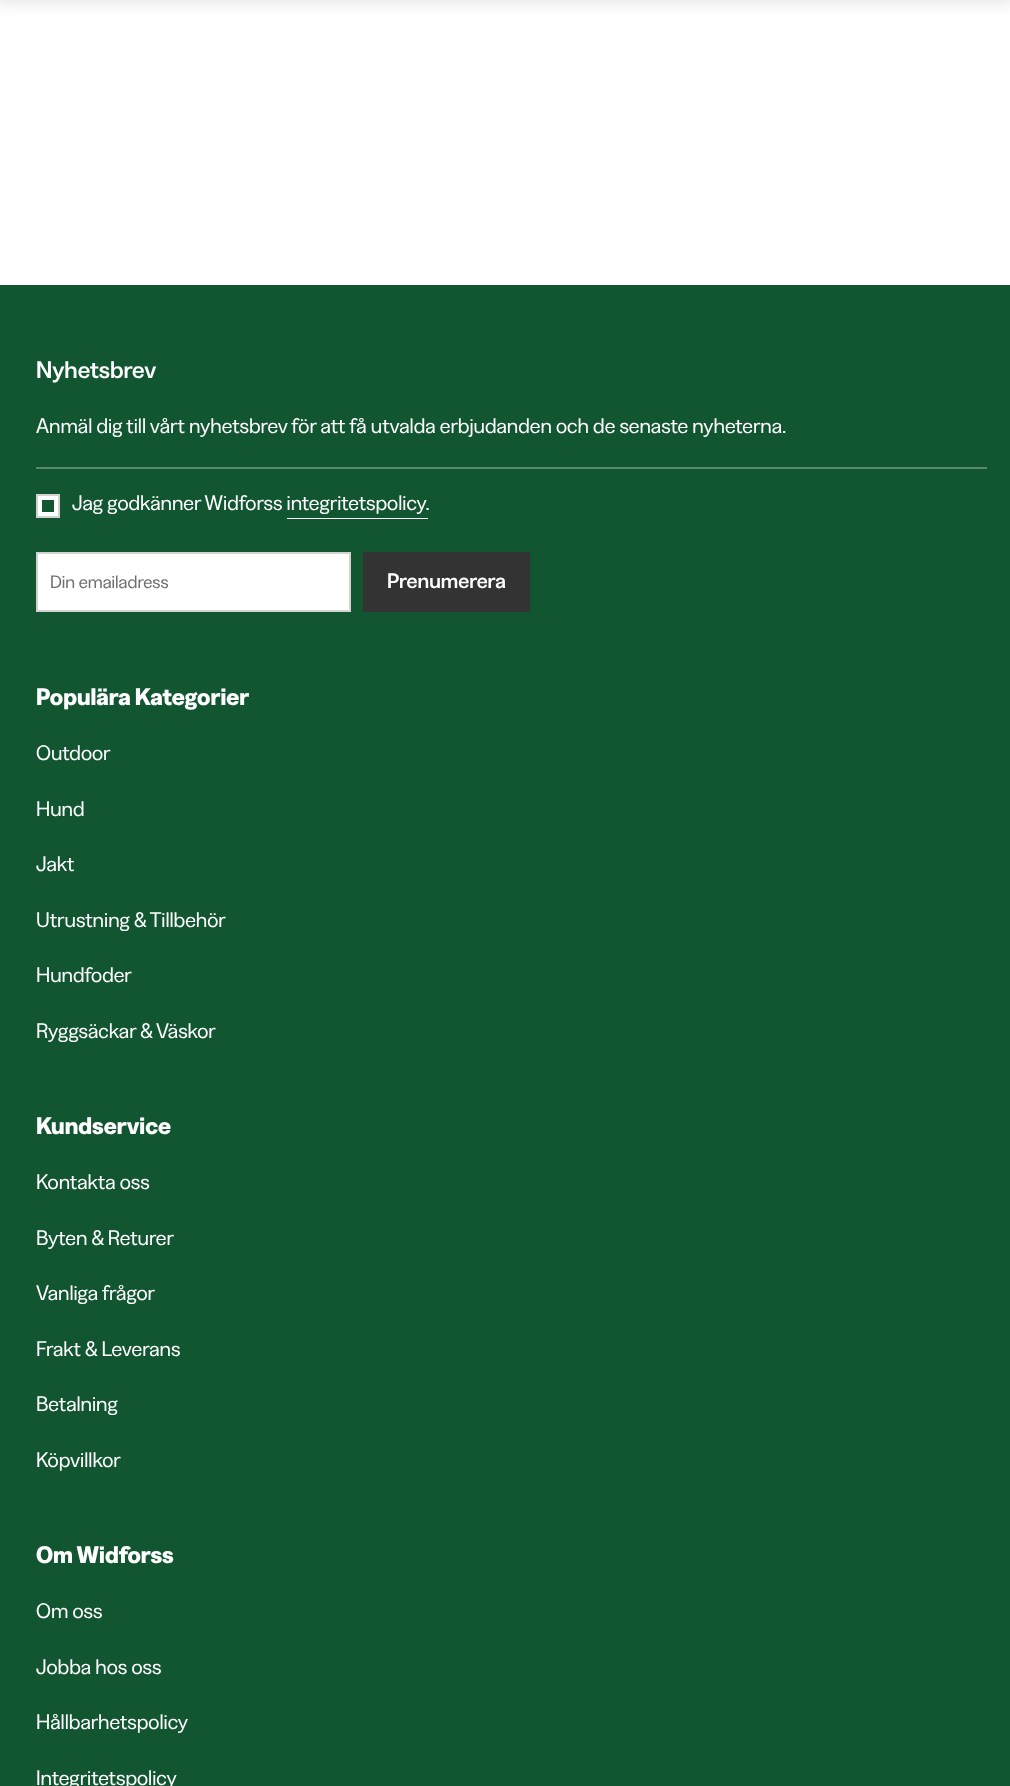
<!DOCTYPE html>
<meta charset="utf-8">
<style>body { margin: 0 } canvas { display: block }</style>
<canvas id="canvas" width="1010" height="1786"></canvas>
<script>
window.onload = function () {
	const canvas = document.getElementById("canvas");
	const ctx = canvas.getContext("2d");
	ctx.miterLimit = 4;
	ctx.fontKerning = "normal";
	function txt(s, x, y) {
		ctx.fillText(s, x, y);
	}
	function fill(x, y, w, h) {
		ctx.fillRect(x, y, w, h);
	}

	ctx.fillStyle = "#FFFFFF";
	fill(0, 0, 1010, 1786);
	ctx.fillStyle = "rgba(0, 0, 0, 0.1)";
	ctx.filter = "blur(7.5px)";
	ctx.beginPath();
	ctx.rect(-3, -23, 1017, 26);
	ctx.fill();
	ctx.filter = "none";
	ctx.fillStyle = "#125531";
	fill(0, 285, 1010, 1501);
	ctx.fillStyle = "#59886F";
	fill(36, 467, 951, 2);
	ctx.fillStyle = "#FFFFFF";
	ctx.beginPath();
	ctx.rect(37, 495, 22, 22);
	ctx.fill();
	ctx.strokeStyle = "#D2D2D1";
	ctx.lineWidth = 2;
	ctx.stroke();
	fill(287, 518, 141, 1);
	ctx.fillStyle = "#125531";
	fill(42, 500, 12, 12);
	ctx.fillStyle = "#FFFFFF";
	ctx.beginPath();
	ctx.rect(37, 553, 313, 58);
	ctx.fill();
	ctx.stroke();
	ctx.fillStyle = "#333333";
	fill(363, 552, 167, 60);
	ctx.font = "500 24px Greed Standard";
	ctx.fillStyle = "#FFFFFF";
	txt("Nyhetsbrev", 36, 378);
	ctx.font = "21px Greed Standard";
	txt("Anmäl dig till vårt nyhetsbrev för att få utvalda erbjudanden och de senaste nyheterna.", 36, 433);
	txt("Jag godkänner Widforss integritetspolicy.", 72, 510);
	ctx.font = "18px Greed Standard";
	ctx.fillStyle = "#6F6F6D";
	txt("Din emailadress", 50, 588);
	ctx.font = "500 21px Greed Standard";
	ctx.fillStyle = "#FFFFFF";
	txt("Prenumerera", 387, 588);
	ctx.font = "bold 24px Greed Standard";
	txt("Populära Kategorier", 36, 705);
	ctx.font = "21px Greed Standard";
	txt("Outdoor", 36, 760);
	txt("Hund", 36, 816);
	txt("Jakt", 36, 871);
	txt("Utrustning & Tillbehör", 36, 927);
	txt("Hundfoder", 36, 982);
	txt("Ryggsäckar & Väskor", 36, 1038);
	ctx.font = "bold 24px Greed Standard";
	txt("Kundservice", 36, 1134);
	ctx.font = "21px Greed Standard";
	txt("Kontakta oss", 36, 1189);
	txt("Byten & Returer", 36, 1245);
	txt("Vanliga frågor", 36, 1300);
	txt("Frakt & Leverans", 36, 1356);
	txt("Betalning", 36, 1411);
	txt("Köpvillkor", 36, 1467);
	ctx.font = "bold 24px Greed Standard";
	txt("Om Widforss", 36, 1563);
	ctx.font = "21px Greed Standard";
	txt("Om oss", 36, 1618);
	txt("Jobba hos oss", 36, 1674);
	txt("Hållbarhetspolicy", 36, 1729);
	txt("Integritetspolicy", 36, 1785);
};
</script>
